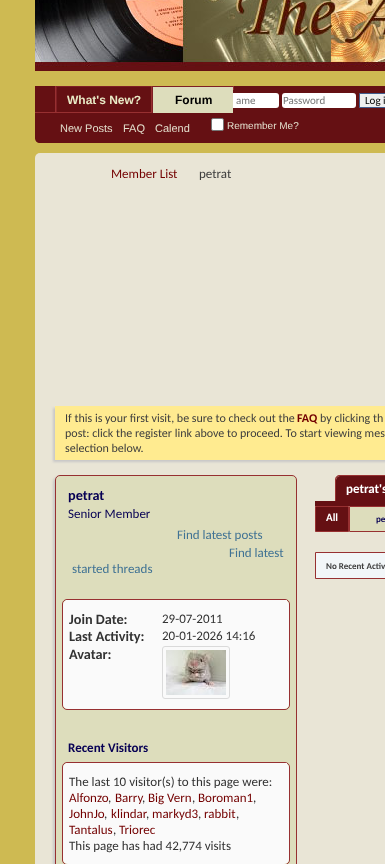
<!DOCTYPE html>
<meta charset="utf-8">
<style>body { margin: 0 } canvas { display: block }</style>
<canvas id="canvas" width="385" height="864"></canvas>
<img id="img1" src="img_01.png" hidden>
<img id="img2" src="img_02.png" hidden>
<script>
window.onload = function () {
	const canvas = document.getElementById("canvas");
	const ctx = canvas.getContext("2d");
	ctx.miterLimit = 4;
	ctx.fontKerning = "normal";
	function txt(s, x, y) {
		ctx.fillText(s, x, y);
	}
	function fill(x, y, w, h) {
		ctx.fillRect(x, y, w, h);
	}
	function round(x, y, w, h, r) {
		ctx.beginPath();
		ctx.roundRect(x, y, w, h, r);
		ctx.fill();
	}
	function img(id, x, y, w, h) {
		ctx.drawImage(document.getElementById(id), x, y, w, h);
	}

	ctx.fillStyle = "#CEBA52";
	fill(0, 0, 385, 864);
	ctx.fillStyle = "#651013";
	ctx.beginPath();
	ctx.moveTo(35, 86);
	ctx.lineTo(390, 86);
	ctx.lineTo(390, 138);
	ctx.bezierCurveTo(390, 141, 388, 143, 385, 143);
	ctx.lineTo(40, 143);
	ctx.bezierCurveTo(37, 143, 35, 141, 35, 138);
	ctx.closePath();
	ctx.fill();
	ctx.fillStyle = "#973031";
	fill(151, 86, 1, 27);
	fill(55, 86, 1, 27);
	ctx.fillStyle = "#7E1F24";
	fill(56, 86, 95, 1);
	fill(56, 86, 1, 27);
	ctx.fillStyle = "#973031";
	fill(233, 86, 1, 4);
	ctx.fillStyle = "#FFFFFF";
	round(205, 93, 74, 15, 3);
	ctx.fillStyle = "#DDDDBC";
	fill(153, 87, 80, 26);
	ctx.fillStyle = "#7E1F24";
	fill(152, 86, 81, 1);
	fill(152, 86, 1, 27);
	ctx.fillStyle = "#973031";
	fill(35, 112, 117, 1);
	img("img1", 35, 0, 350, 71);
	ctx.fillStyle = "#FFFFFF";
	round(282, 93, 74, 15, 3);
	ctx.fillStyle = "#EFEFEF";
	ctx.beginPath();
	ctx.rect(359.5, 93.5, 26, 14);
	ctx.fill();
	ctx.strokeStyle = "#415D8D";
	ctx.stroke();
	ctx.fillStyle = "#FFFFFF";
	ctx.beginPath();
	ctx.roundRect(211.5, 118.5, 12, 12, 1.5);
	ctx.fill();
	ctx.strokeStyle = "#767676";
	ctx.stroke();
	ctx.fillStyle = "#E9E5D6";
	round(35, 153, 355, 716, 5);
	ctx.fillStyle = "#C8C8C8";
	ctx.filter = "blur(1px)";
	ctx.beginPath();
	ctx.rect(53, 408, 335, 54);
	ctx.fill();
	ctx.filter = "none";
	ctx.fillStyle = "#FFEB90";
	fill(55, 406, 330, 54);
	ctx.fillStyle = "#C8C8C8";
	ctx.filter = "blur(1px)";
	ctx.beginPath();
	ctx.roundRect(53, 477, 242, 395, 5);
	ctx.fill();
	ctx.filter = "none";
	ctx.fillStyle = "#DDDDBC";
	ctx.beginPath();
	ctx.roundRect(55.5, 475.5, 241, 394, 4.5);
	ctx.fill();
	ctx.strokeStyle = "#973031";
	ctx.stroke();
	ctx.beginPath();
	ctx.roundRect(62.5, 599.5, 227, 110, 4.5);
	ctx.stroke();
	ctx.fillStyle = "#FAFAFA";
	round(63, 600, 226, 109, 5);
	fill(66, 600, 221, 1);
	ctx.beginPath();
	ctx.roundRect(162.5, 646.5, 67, 52, 2.5);
	ctx.strokeStyle = "#DADADA";
	ctx.stroke();
	img("img2", 166, 650, 60, 45);
	ctx.beginPath();
	ctx.roundRect(62.5, 762.5, 227, 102, 4.5);
	ctx.strokeStyle = "#973031";
	ctx.stroke();
	round(63, 763, 226, 101, 5);
	fill(66, 763, 221, 1);
	ctx.fillStyle = "#651013";
	ctx.beginPath();
	ctx.moveTo(340, 476);
	ctx.lineTo(385, 476);
	ctx.bezierCurveTo(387, 476, 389, 478, 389, 480);
	ctx.lineTo(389, 501);
	ctx.lineTo(336, 501);
	ctx.lineTo(336, 480);
	ctx.bezierCurveTo(336, 478, 338, 476, 340, 476);
	ctx.closePath();
	ctx.fill();
	ctx.fillStyle = "#973031";
	ctx.beginPath();
	ctx.moveTo(340, 475);
	ctx.lineTo(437, 475);
	ctx.bezierCurveTo(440, 475, 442, 477, 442, 480);
	ctx.lineTo(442, 501);
	ctx.lineTo(335, 501);
	ctx.lineTo(335, 480);
	ctx.bezierCurveTo(335, 477, 337, 475, 340, 475);
	ctx.closePath();
	ctx.moveTo(340, 476);
	ctx.lineTo(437, 476);
	ctx.bezierCurveTo(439, 476, 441, 478, 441, 480);
	ctx.lineTo(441, 501);
	ctx.lineTo(336, 501);
	ctx.lineTo(336, 480);
	ctx.bezierCurveTo(336, 478, 338, 476, 340, 476);
	ctx.closePath();
	ctx.fill("evenodd");
	ctx.fillStyle = "#651013";
	fill(315, 501, 70, 5);
	ctx.beginPath();
	ctx.rect(315.5, 506.5, 33, 25);
	ctx.fill();
	ctx.stroke();
	ctx.fillStyle = "#DDDDBC";
	ctx.beginPath();
	ctx.rect(349.5, 506.5, 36, 25);
	ctx.fill();
	ctx.stroke();
	ctx.fillStyle = "#F2F6F8";
	ctx.beginPath();
	ctx.rect(315.5, 552.5, 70, 26);
	ctx.fill();
	ctx.stroke();
	ctx.font = "bold 12px Liberation Sans";
	ctx.fillStyle = "#E9EAC6";
	txt("What's New?", 67, 104);
	ctx.fillStyle = "#000000";
	txt("Forum", 175, 104);
	ctx.font = "11px Liberation Sans";
	ctx.fillStyle = "#E2DDCB";
	txt("New Posts", 60, 132);
	txt("FAQ", 123, 132);
	txt("Calend", 155, 132);
	ctx.font = "11px Carlito";
	ctx.fillStyle = "#777777";
	txt("ame", 236, 104);
	txt("Password", 283, 104);
	ctx.fillStyle = "#000000";
	txt("Log i", 365, 104);
	ctx.font = "10px Liberation Sans";
	ctx.fillStyle = "#E2DDCB";
	txt("Remember Me?", 227, 129);
	ctx.font = "13px Carlito";
	ctx.fillStyle = "#730000";
	txt("Member List", 111, 178);
	ctx.fillStyle = "#3E3E3E";
	txt("petrat", 199, 178);
	ctx.font = "12px Carlito";
	txt("If this is your first visit, be sure to check out the", 65, 422);
	ctx.font = "bold 12px Carlito";
	ctx.fillStyle = "#730000";
	txt("FAQ", 297, 422);
	ctx.font = "12px Carlito";
	ctx.fillStyle = "#3E3E3E";
	txt("by clicking th", 320, 422);
	txt("post: click the register link above to proceed. To start viewing mes", 65, 437);
	txt("selection below.", 65, 452);
	ctx.font = "bold 14.25px Carlito";
	ctx.fillStyle = "#070054";
	txt("petrat", 68, 500);
	ctx.font = "13px Carlito";
	txt("Senior Member", 68, 518);
	ctx.fillStyle = "#417394";
	txt("Find latest posts", 177, 539);
	txt("Find latest", 229, 557);
	txt("started threads", 72, 573);
	ctx.font = "bold 14.25px Carlito";
	ctx.fillStyle = "#333333";
	txt("Join Date:", 69, 624);
	ctx.font = "13px Carlito";
	txt("29-07-2011", 162, 623);
	ctx.font = "bold 14.25px Carlito";
	txt("Last Activity:", 69, 641);
	ctx.font = "13px Carlito";
	txt("20-01-2026 14:16", 162, 640);
	ctx.font = "bold 14.25px Carlito";
	txt("Avatar:", 69, 659);
	ctx.font = "bold 13px Carlito";
	ctx.fillStyle = "#070054";
	txt("Recent Visitors", 68, 752);
	ctx.font = "13px Carlito";
	ctx.fillStyle = "#333333";
	txt("The last 10 visitor(s) to this page were:", 69, 786);
	ctx.fillStyle = "#730000";
	txt("Alfonzo", 69, 802);
	ctx.fillStyle = "#333333";
	txt(",", 108, 802);
	ctx.fillStyle = "#730000";
	txt("Barry", 115, 802);
	ctx.fillStyle = "#333333";
	txt(",", 142, 802);
	ctx.fillStyle = "#730000";
	txt("Big Vern", 148, 802);
	ctx.fillStyle = "#333333";
	txt(",", 192, 802);
	ctx.fillStyle = "#730000";
	txt("Boroman1", 198, 802);
	ctx.fillStyle = "#333333";
	txt(",", 253, 802);
	ctx.fillStyle = "#730000";
	txt("JohnJo", 69, 818);
	ctx.fillStyle = "#333333";
	txt(",", 104, 818);
	ctx.fillStyle = "#730000";
	txt("klindar", 111, 818);
	ctx.fillStyle = "#333333";
	txt(",", 146, 818);
	ctx.fillStyle = "#730000";
	txt("markyd3", 152, 818);
	ctx.fillStyle = "#333333";
	txt(",", 198, 818);
	ctx.fillStyle = "#730000";
	txt("rabbit", 204, 818);
	ctx.fillStyle = "#333333";
	txt(",", 236, 818);
	ctx.fillStyle = "#730000";
	txt("Tantalus", 69, 834);
	ctx.fillStyle = "#333333";
	txt(",", 113, 834);
	ctx.fillStyle = "#730000";
	txt("Triorec", 119, 834);
	ctx.fillStyle = "#333333";
	txt("This page has had 42,774 visits", 69, 850);
	ctx.font = "bold 13px Carlito";
	ctx.fillStyle = "#FFFFFF";
	txt("petrat's", 346, 493);
	ctx.font = "bold 11px Carlito";
	txt("All", 326, 521);
	ctx.font = "bold 9px Carlito";
	ctx.fillStyle = "#070054";
	txt("pe", 376, 522);
	ctx.fillStyle = "#3E3E3E";
	txt("No Recent Activ", 326, 569);
};
</script>
